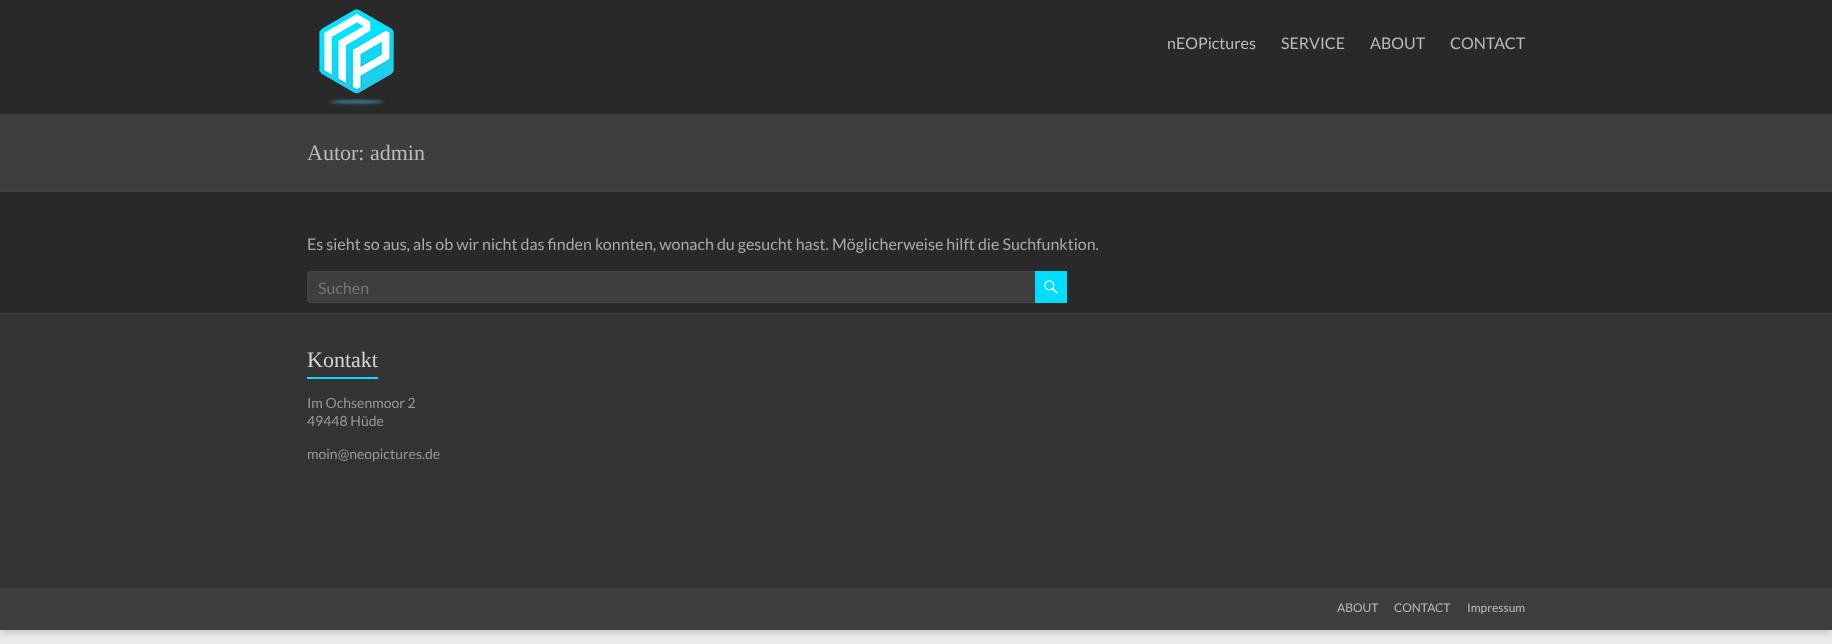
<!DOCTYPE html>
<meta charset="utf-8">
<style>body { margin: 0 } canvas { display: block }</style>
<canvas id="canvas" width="1832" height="644"></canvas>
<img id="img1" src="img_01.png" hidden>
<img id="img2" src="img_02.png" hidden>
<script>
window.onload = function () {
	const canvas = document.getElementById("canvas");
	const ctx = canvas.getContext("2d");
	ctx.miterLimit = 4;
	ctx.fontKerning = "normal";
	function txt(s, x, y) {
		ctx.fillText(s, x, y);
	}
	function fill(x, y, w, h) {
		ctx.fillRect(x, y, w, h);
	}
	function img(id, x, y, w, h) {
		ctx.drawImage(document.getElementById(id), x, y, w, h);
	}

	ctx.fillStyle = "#EAEAEA";
	fill(0, 0, 1832, 644);
	ctx.fillStyle = "rgba(100, 100, 100, 0.3)";
	ctx.filter = "blur(3px)";
	ctx.beginPath();
	ctx.rect(0, 2, 1832, 630);
	ctx.fill();
	ctx.filter = "none";
	ctx.fillStyle = "#292929";
	fill(0, 0, 1832, 313);
	ctx.fillStyle = "#444444";
	fill(0, 114, 1832, 1);
	img("img1", 319, 9, 75, 97);
	ctx.fillStyle = "#3E3E3E";
	fill(0, 115, 1832, 76);
	ctx.fillStyle = "#444444";
	fill(0, 191, 1832, 1);
	ctx.fillStyle = "#3E3E3E";
	ctx.beginPath();
	ctx.roundRect(307.5, 271.5, 730, 31, 2.5);
	ctx.fill();
	ctx.strokeStyle = "#444444";
	ctx.stroke();
	ctx.fillStyle = "#00DDFF";
	fill(1035, 271, 32, 32);
	img("img2", 1044, 280, 14, 14);
	ctx.fillStyle = "#333333";
	fill(0, 314, 1832, 274);
	ctx.fillStyle = "#444444";
	fill(0, 313, 1832, 1);
	ctx.fillStyle = "#00DDFF";
	fill(307, 377, 71, 2);
	ctx.fillStyle = "#3E3E3E";
	fill(0, 589, 1832, 41);
	ctx.fillStyle = "#444444";
	fill(0, 588, 1832, 1);
	ctx.font = "16px Lato";
	ctx.fillStyle = "#BBBBBB";
	txt("nEOPictures", 1167, 49);
	txt("SERVICE", 1281, 49);
	txt("ABOUT", 1370, 49);
	txt("CONTACT", 1450, 49);
	ctx.font = "22px Liberation Serif";
	txt("Autor: admin", 307, 160);
	ctx.font = "16px Lato";
	ctx.fillStyle = "#AAAAAA";
	txt("Es sieht so aus, als ob wir nicht das finden konnten, wonach du gesucht hast. Möglicherweise hilft die Suchfunktion.", 307, 250);
	ctx.fillStyle = "#757575";
	txt("Suchen", 318, 294);
	ctx.font = "22px Liberation Serif";
	ctx.fillStyle = "#D5D5D5";
	txt("Kontakt", 307, 367);
	ctx.font = "14px Lato";
	ctx.fillStyle = "#999999";
	txt("Im Ochsenmoor 2", 307, 408);
	txt("49448 Hüde", 307, 426);
	txt("moin@neopictures.de", 307, 459);
	ctx.font = "12px Lato";
	ctx.fillStyle = "#BBBBBB";
	txt("ABOUT", 1337, 612);
	txt("CONTACT", 1394, 612);
	txt("Impressum", 1467, 612);
};
</script>
